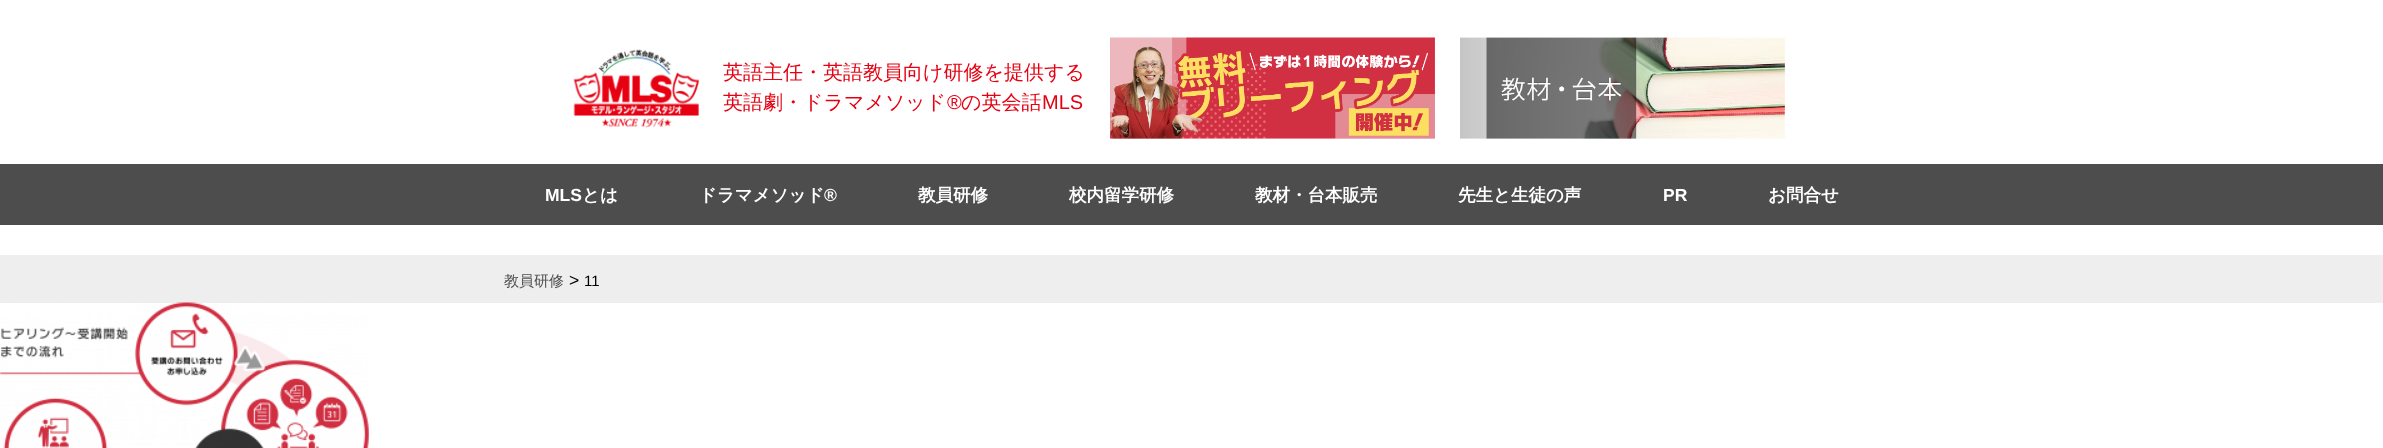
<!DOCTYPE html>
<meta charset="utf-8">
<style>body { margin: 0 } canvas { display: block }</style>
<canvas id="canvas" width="2383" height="448"></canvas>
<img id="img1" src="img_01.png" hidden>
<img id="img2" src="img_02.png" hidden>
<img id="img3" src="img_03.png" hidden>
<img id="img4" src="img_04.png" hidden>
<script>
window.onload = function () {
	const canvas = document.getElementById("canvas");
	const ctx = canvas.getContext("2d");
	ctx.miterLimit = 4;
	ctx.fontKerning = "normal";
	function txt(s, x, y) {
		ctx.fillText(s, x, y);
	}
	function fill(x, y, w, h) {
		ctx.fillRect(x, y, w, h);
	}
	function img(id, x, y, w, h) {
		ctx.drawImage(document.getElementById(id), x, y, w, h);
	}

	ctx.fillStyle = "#FFFFFF";
	fill(0, 0, 2383, 448);
	img("img1", 573, 49, 126, 79);
	img("img2", 1110, 37, 325, 102);
	img("img3", 1460, 37, 325, 102);
	ctx.fillStyle = "#4D4D4D";
	fill(0, 164, 2383, 61);
	ctx.fillStyle = "#EEEEEE";
	fill(0, 255, 2383, 48);
	img("img4", 0, 302, 369, 146);
	ctx.font = "500 20px WenQuanYi Zen Hei";
	ctx.fillStyle = "#E60012";
	txt("英語主任・英語教員向け研修を提供する", 723, 79);
	txt("英語劇・ドラマメソッド", 723, 109);
	ctx.font = "20px Liberation Sans";
	txt("®", 947, 109);
	ctx.font = "500 20px WenQuanYi Zen Hei";
	txt("の英会話", 961, 109);
	ctx.font = "20px Liberation Sans";
	txt("MLS", 1042, 109);
	ctx.font = "bold 17.5px Liberation Sans";
	ctx.fillStyle = "#FFFFFF";
	txt("MLS", 545, 201);
	ctx.font = "bold 17.5px WenQuanYi Zen Hei";
	txt("とは", 582, 201);
	txt("ドラマメソッド", 699, 201);
	ctx.font = "bold 17.5px Liberation Sans";
	txt("®", 824, 201);
	ctx.font = "bold 17.5px WenQuanYi Zen Hei";
	txt("教員研修", 918, 201);
	txt("校内留学研修", 1069, 201);
	txt("教材・台本販売", 1255, 201);
	txt("先生と生徒の声", 1458, 201);
	ctx.font = "bold 17.5px Liberation Sans";
	txt("PR", 1663, 201);
	ctx.font = "bold 17.5px WenQuanYi Zen Hei";
	txt("お問合せ", 1768, 201);
	ctx.font = "500 15px WenQuanYi Zen Hei";
	ctx.fillStyle = "#4D4D4D";
	txt("教員研修", 504, 286);
	ctx.font = "17.5px Liberation Sans";
	ctx.fillStyle = "#000000";
	txt(">", 569, 286);
	ctx.font = "15px Liberation Sans";
	txt("11", 584, 286);
};
</script>
